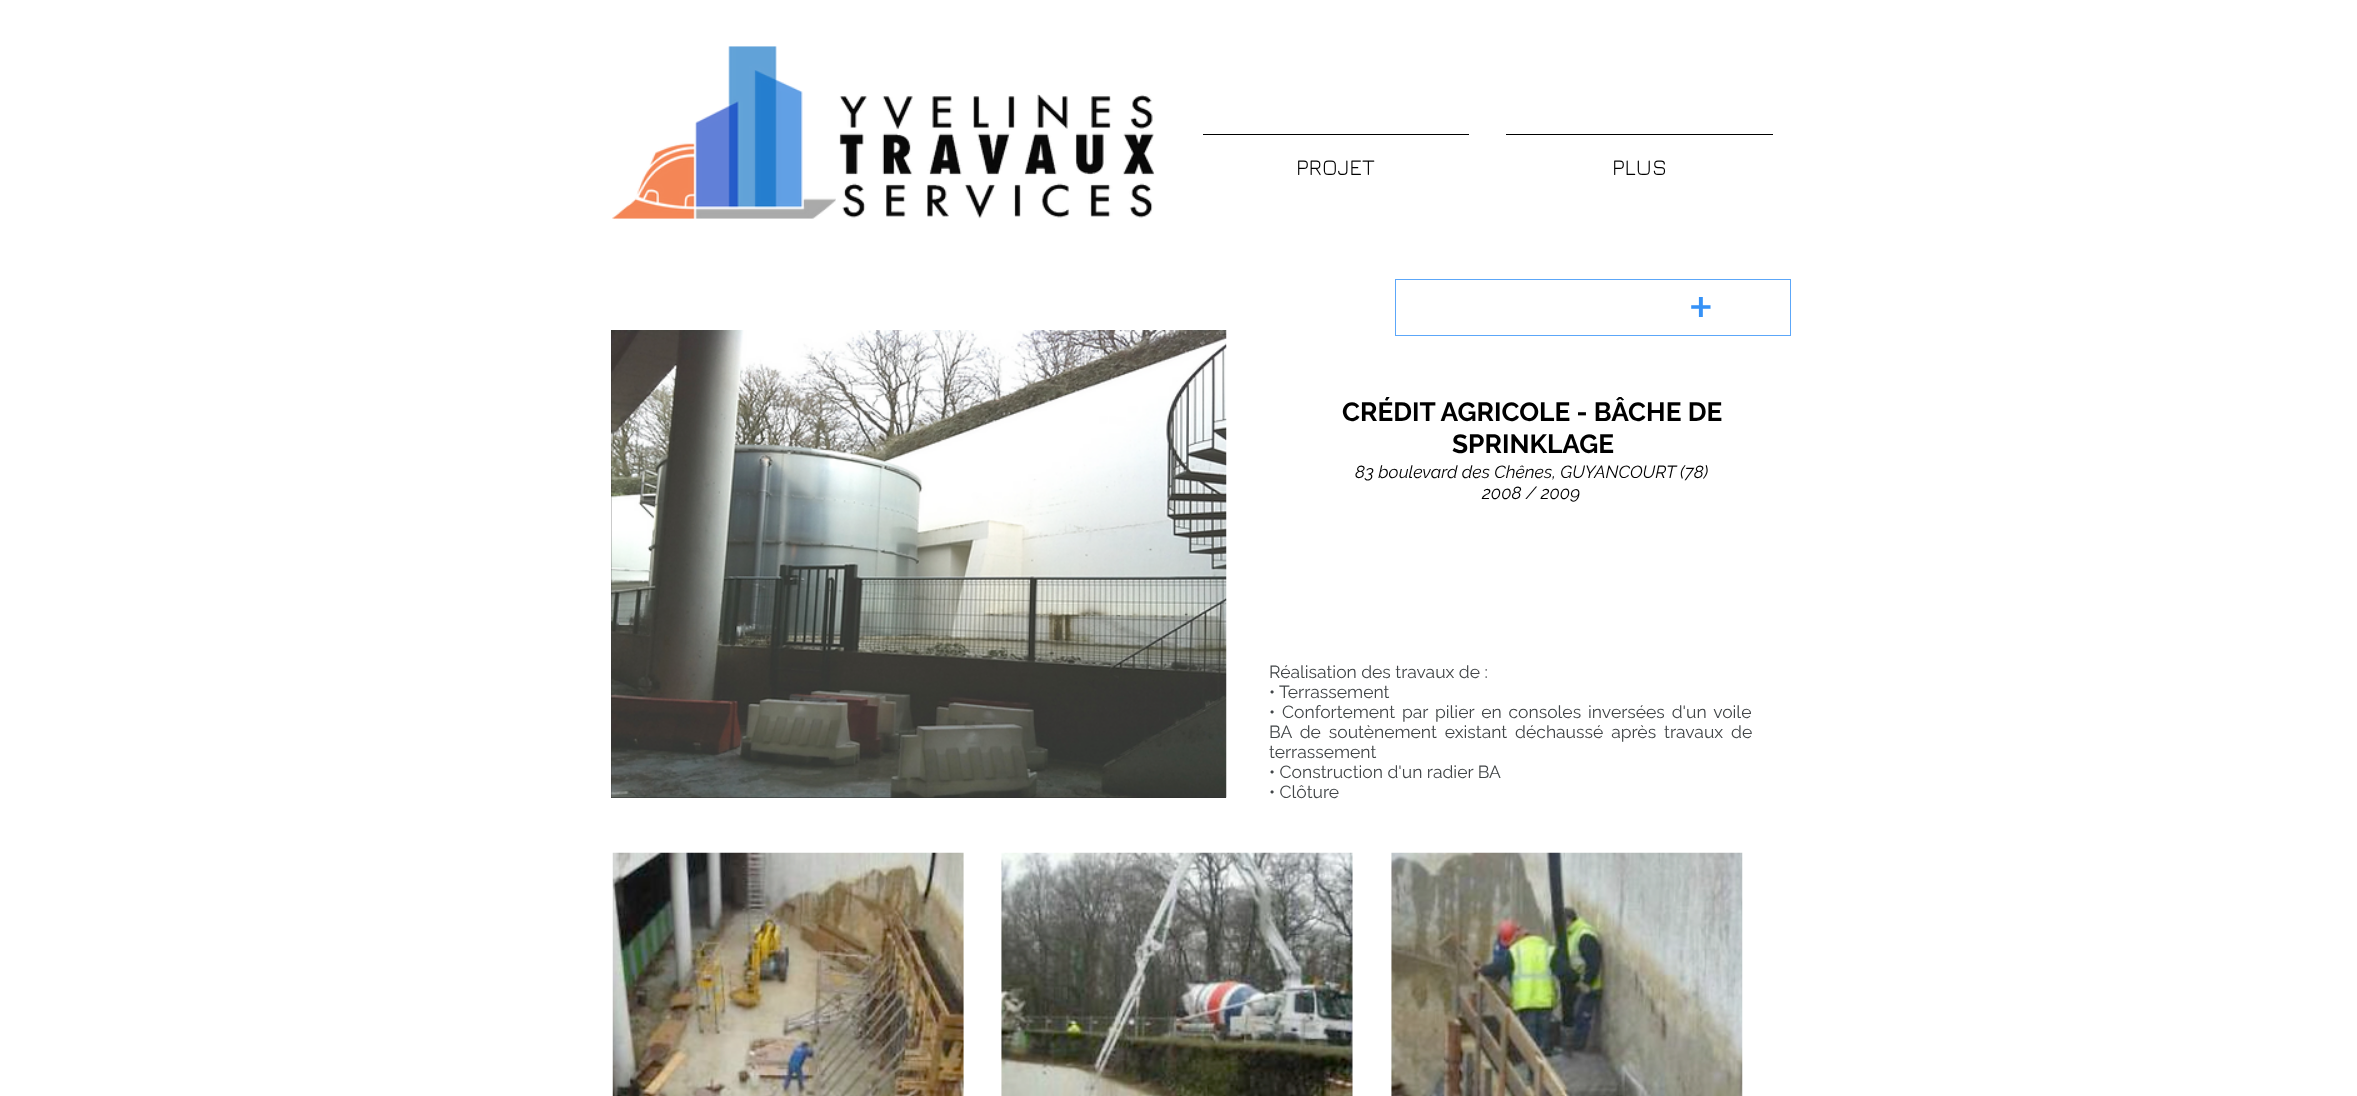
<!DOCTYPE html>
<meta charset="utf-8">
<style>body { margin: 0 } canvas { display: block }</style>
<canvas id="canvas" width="2357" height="1096"></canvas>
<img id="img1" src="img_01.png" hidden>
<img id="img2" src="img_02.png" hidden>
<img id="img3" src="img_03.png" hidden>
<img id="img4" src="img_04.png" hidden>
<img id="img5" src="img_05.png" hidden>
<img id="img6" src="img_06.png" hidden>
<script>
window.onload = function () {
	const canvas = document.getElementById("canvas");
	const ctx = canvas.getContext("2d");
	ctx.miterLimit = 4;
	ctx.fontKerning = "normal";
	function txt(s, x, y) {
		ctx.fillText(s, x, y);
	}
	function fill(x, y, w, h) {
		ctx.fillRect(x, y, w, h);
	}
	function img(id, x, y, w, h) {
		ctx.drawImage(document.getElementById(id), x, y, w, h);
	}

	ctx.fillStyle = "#FFFFFF";
	fill(0, 0, 2357, 1096);
	img("img1", 612, 46, 224, 173);
	img("img2", 839, 94, 316, 125);
	ctx.fillStyle = "#000000";
	fill(1203, 134, 266, 1);
	fill(1506, 134, 267, 1);
	ctx.strokeStyle = "#5CA7F9";
	ctx.strokeRect(1395.5, 279.5, 395, 56);
	ctx.fillStyle = "#2F2E2E";
	fill(611, 330, 615, 468);
	img("img3", 611, 330, 616, 468);
	img("img4", 612, 852, 352, 244);
	img("img5", 1001, 852, 352, 244);
	img("img6", 1391, 852, 352, 244);
	ctx.font = "22.5px Jura";
	ctx.fillStyle = "#000000";
	txt("PROJET", 1296, 175);
	txt("PLUS", 1612, 175);
	ctx.font = "62px Raleway";
	ctx.fillStyle = "#3692F7";
	txt("+", 1688, 329);
	ctx.font = "bold 26.25px Raleway";
	ctx.fillStyle = "#000000";
	txt("CRÉDIT AGRICOLE - BÂCHE DE", 1342, 421);
	txt("SPRINKLAGE", 1452, 453);
	ctx.font = "italic 17.5px Raleway";
	txt("83 boulevard des Chênes, GUYANCOURT (78)", 1355, 478);
	txt("2008 / 2009", 1482, 499);
	ctx.font = "17.5px Raleway";
	ctx.fillStyle = "#414547";
	txt("Réalisation des travaux de :", 1269, 678);
	txt("• Terrassement", 1269, 698);
	ctx.wordSpacing = "2.5px";
	txt("• Confortement par pilier en consoles inversées d'un voile", 1269, 718);
	ctx.wordSpacing = "3.5px";
	txt("BA de soutènement existant déchaussé après travaux de", 1269, 738);
	ctx.wordSpacing = "0px";
	txt("terrassement", 1269, 758);
	txt("• Construction d'un radier BA", 1269, 778);
	txt("• Clôture", 1269, 798);
};
</script>
